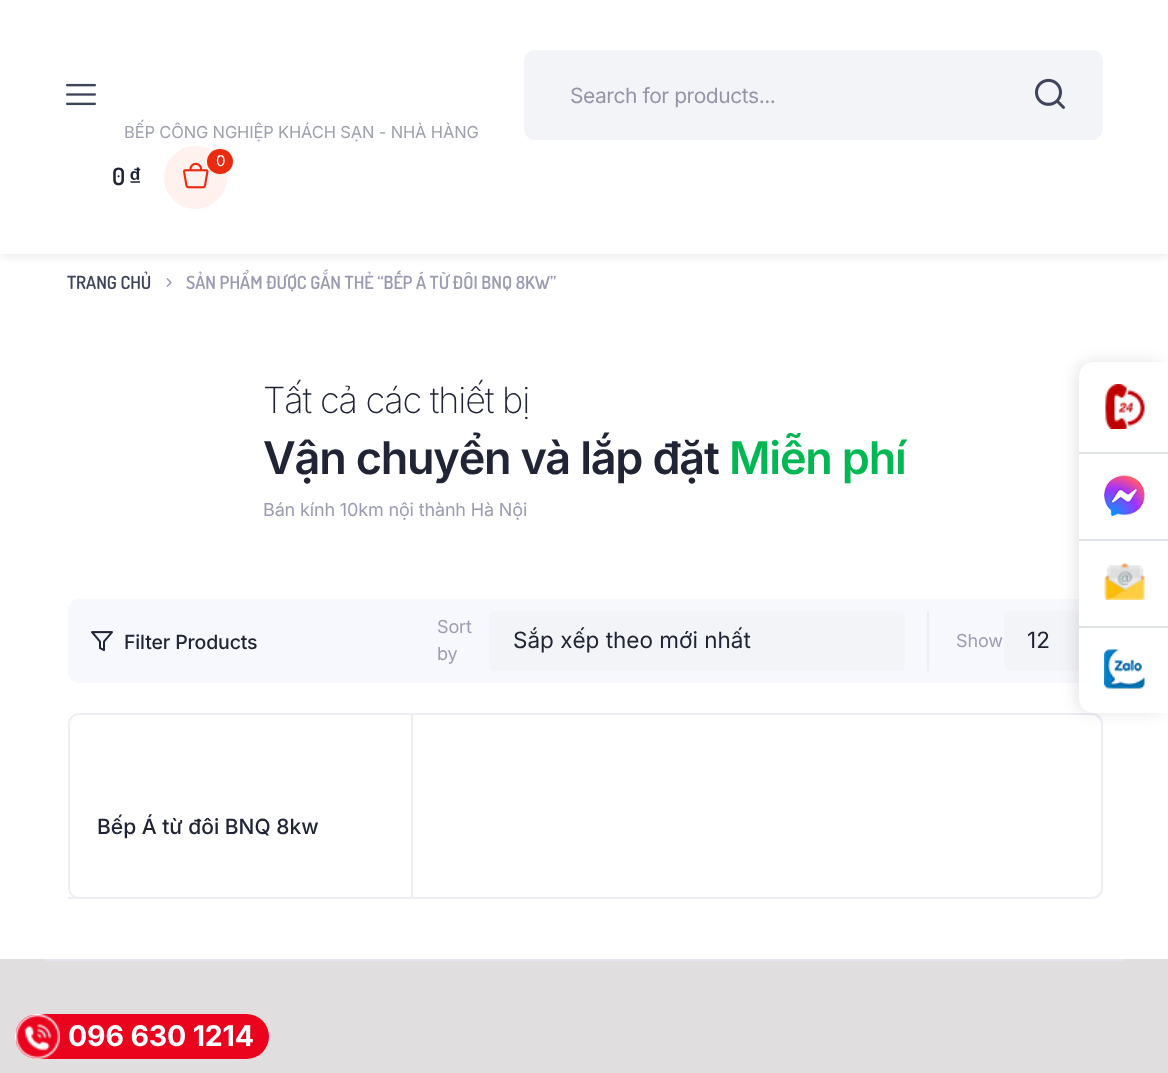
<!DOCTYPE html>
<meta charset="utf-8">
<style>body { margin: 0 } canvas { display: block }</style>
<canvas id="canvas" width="1168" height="1073"></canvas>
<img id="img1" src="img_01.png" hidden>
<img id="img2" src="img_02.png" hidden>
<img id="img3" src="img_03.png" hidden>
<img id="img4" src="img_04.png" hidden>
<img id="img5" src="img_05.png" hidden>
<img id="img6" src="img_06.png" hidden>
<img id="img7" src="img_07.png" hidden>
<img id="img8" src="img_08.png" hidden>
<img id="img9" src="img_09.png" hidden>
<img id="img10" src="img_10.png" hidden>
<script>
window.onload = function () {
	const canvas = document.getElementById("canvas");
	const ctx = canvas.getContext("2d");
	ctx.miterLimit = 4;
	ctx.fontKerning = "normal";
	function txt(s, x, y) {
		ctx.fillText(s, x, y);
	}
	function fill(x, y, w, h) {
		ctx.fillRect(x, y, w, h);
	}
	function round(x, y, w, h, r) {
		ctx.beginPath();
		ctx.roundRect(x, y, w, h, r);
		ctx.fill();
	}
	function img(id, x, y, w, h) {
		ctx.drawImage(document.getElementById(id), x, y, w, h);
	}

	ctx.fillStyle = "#FFFFFF";
	fill(0, 0, 1168, 1073);
	ctx.fillStyle = "rgba(0, 0, 0, 0.07)";
	ctx.filter = "blur(4px)";
	ctx.beginPath();
	ctx.rect(0, 3, 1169, 254);
	ctx.fill();
	ctx.filter = "none";
	ctx.fillStyle = "#FFFFFF";
	fill(0, 0, 1168, 254);
	ctx.fillStyle = "#F3F4F7";
	round(524, 50, 579, 90, 11);
	img("img1", 1035, 78, 30, 31);
	img("img2", 66, 83, 30, 23);
	ctx.fillStyle = "#FFF1EE";
	ctx.beginPath();
	ctx.arc(195.5, 177.5, 30.5, 0, Math.PI * 2);
	ctx.fill();
	ctx.strokeStyle = "#FFF1EE";
	ctx.lineWidth = 2;
	ctx.stroke();
	img("img3", 183, 162, 26, 27);
	ctx.fillStyle = "#EA2B0F";
	round(207, 149, 26, 25, 12.5);
	img("img4", 166, 278, 6, 9);
	ctx.fillStyle = "#F7F8FD";
	round(68, 599, 1035, 84, 11);
	img("img5", 91, 631, 22, 21);
	ctx.fillStyle = "#F3F4F7";
	round(489, 611, 416, 60, 6);
	ctx.fillStyle = "#EDEEF5";
	fill(927, 611, 2, 60);
	ctx.fillStyle = "#F3F4F7";
	round(1004, 611, 76, 60, 6);
	ctx.beginPath();
	ctx.roundRect(69, 714, 1033, 184, 10);
	ctx.strokeStyle = "#EDEEF5";
	ctx.stroke();
	ctx.fillStyle = "#EDEEF5";
	fill(411, 713, 2, 186);
	fill(68, 897, 10, 2);
	ctx.fillStyle = "rgba(0, 0, 0, 0.1)";
	ctx.filter = "blur(7.5px)";
	ctx.beginPath();
	ctx.roundRect(1076, 362, 90, 351, 15);
	ctx.fill();
	ctx.filter = "none";
	ctx.fillStyle = "#FFFFFF";
	ctx.beginPath();
	ctx.moveTo(1094, 362);
	ctx.lineTo(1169, 362);
	ctx.lineTo(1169, 713);
	ctx.lineTo(1094, 713);
	ctx.bezierCurveTo(1085.5, 713, 1079, 706.5, 1079, 698);
	ctx.lineTo(1079, 377);
	ctx.bezierCurveTo(1079, 368.5, 1085.5, 362, 1094, 362);
	ctx.closePath();
	ctx.fill();
	ctx.fillStyle = "#DEE2E6";
	fill(1079, 452, 89, 2);
	img("img6", 1105, 384, 40, 45);
	fill(1079, 539, 89, 2);
	img("img7", 1104, 475, 41, 41);
	fill(1079, 626, 89, 2);
	img("img8", 1104, 562, 41, 38);
	img("img9", 1104, 649, 41, 40);
	ctx.fillStyle = "#E0DEDE";
	fill(0, 959, 1168, 114);
	ctx.fillStyle = "#E4E5EE";
	fill(45, 959, 1080, 2);
	ctx.fillStyle = "#EB021D";
	round(15, 1014, 254, 45, 22.5);
	img("img10", 15, 1014, 45, 45);
	ctx.letterSpacing = "-0.45px";
	ctx.font = "21px Inter";
	ctx.fillStyle = "#9595A9";
	txt("Search for products...", 570, 103);
	ctx.letterSpacing = "-0.15px";
	ctx.font = "16.5px Inter";
	ctx.fillStyle = "#9FA2AD";
	txt("BẾP CÔNG NGHIỆP KHÁCH SẠN - NHÀ HÀNG", 124, 138);
	ctx.font = "15px Inter";
	ctx.fillStyle = "#FFFFFF";
	txt("0", 216, 166);
	ctx.font = "600 24px Dosis";
	ctx.fillStyle = "#202435";
	txt("0", 112, 185);
	ctx.font = "bold 24px Liberation Sans";
	txt("₫", 129, 185);
	ctx.letterSpacing = "0px";
	ctx.font = "600 18px Dosis";
	ctx.fillStyle = "#3E445A";
	txt("TRANG CHỦ", 67, 289);
	ctx.fillStyle = "#9B9BB4";
	txt("SẢN PHẨM ĐƯỢC GẮN THẺ “BẾP Á TỪ ĐÔI BNQ 8KW”", 186, 289);
	ctx.letterSpacing = "-1.2px";
	ctx.font = "200 36px Inter";
	ctx.fillStyle = "#202435";
	txt("Tất cả các thiết bị", 263, 413);
	ctx.font = "600 45px Inter";
	txt("Vận chuyển và lắp đặt", 263, 474);
	ctx.fillStyle = "#00B853";
	txt("Miễn phí", 729, 474);
	ctx.letterSpacing = "-0.15px";
	ctx.font = "18px Inter";
	ctx.fillStyle = "#9B9BB4";
	txt("Bán kính 10km nội thành Hà Nội", 263, 516);
	ctx.font = "500 19.5px Inter";
	ctx.fillStyle = "#202435";
	txt("Filter Products", 124, 649);
	ctx.font = "18px Inter";
	ctx.fillStyle = "#9B9BB4";
	txt("Sort", 437, 633);
	txt("by", 437, 660);
	ctx.letterSpacing = "0px";
	ctx.font = "22.5px Inter";
	ctx.fillStyle = "#202435";
	txt("Sắp xếp theo mới nhất", 513, 648);
	ctx.letterSpacing = "-0.15px";
	ctx.font = "18px Inter";
	ctx.fillStyle = "#9B9BB4";
	txt("Show", 956, 647);
	ctx.save();
	ctx.beginPath();
	ctx.rect(1028, 624, 28, 33);
	ctx.clip();
	ctx.letterSpacing = "0px";
	ctx.font = "22.5px Inter";
	ctx.fillStyle = "#202435";
	txt("12", 1027, 648);
	ctx.restore();
	ctx.letterSpacing = "0px";
	ctx.font = "500 21px Inter";
	ctx.fillStyle = "#202435";
	txt("Bếp Á từ đôi BNQ 8kw", 97, 834);
	ctx.letterSpacing = "-0.15px";
	ctx.font = "bold 28.5px Inter";
	ctx.fillStyle = "#FFFFFF";
	txt("096 630 1214", 68, 1046);
};
</script>
